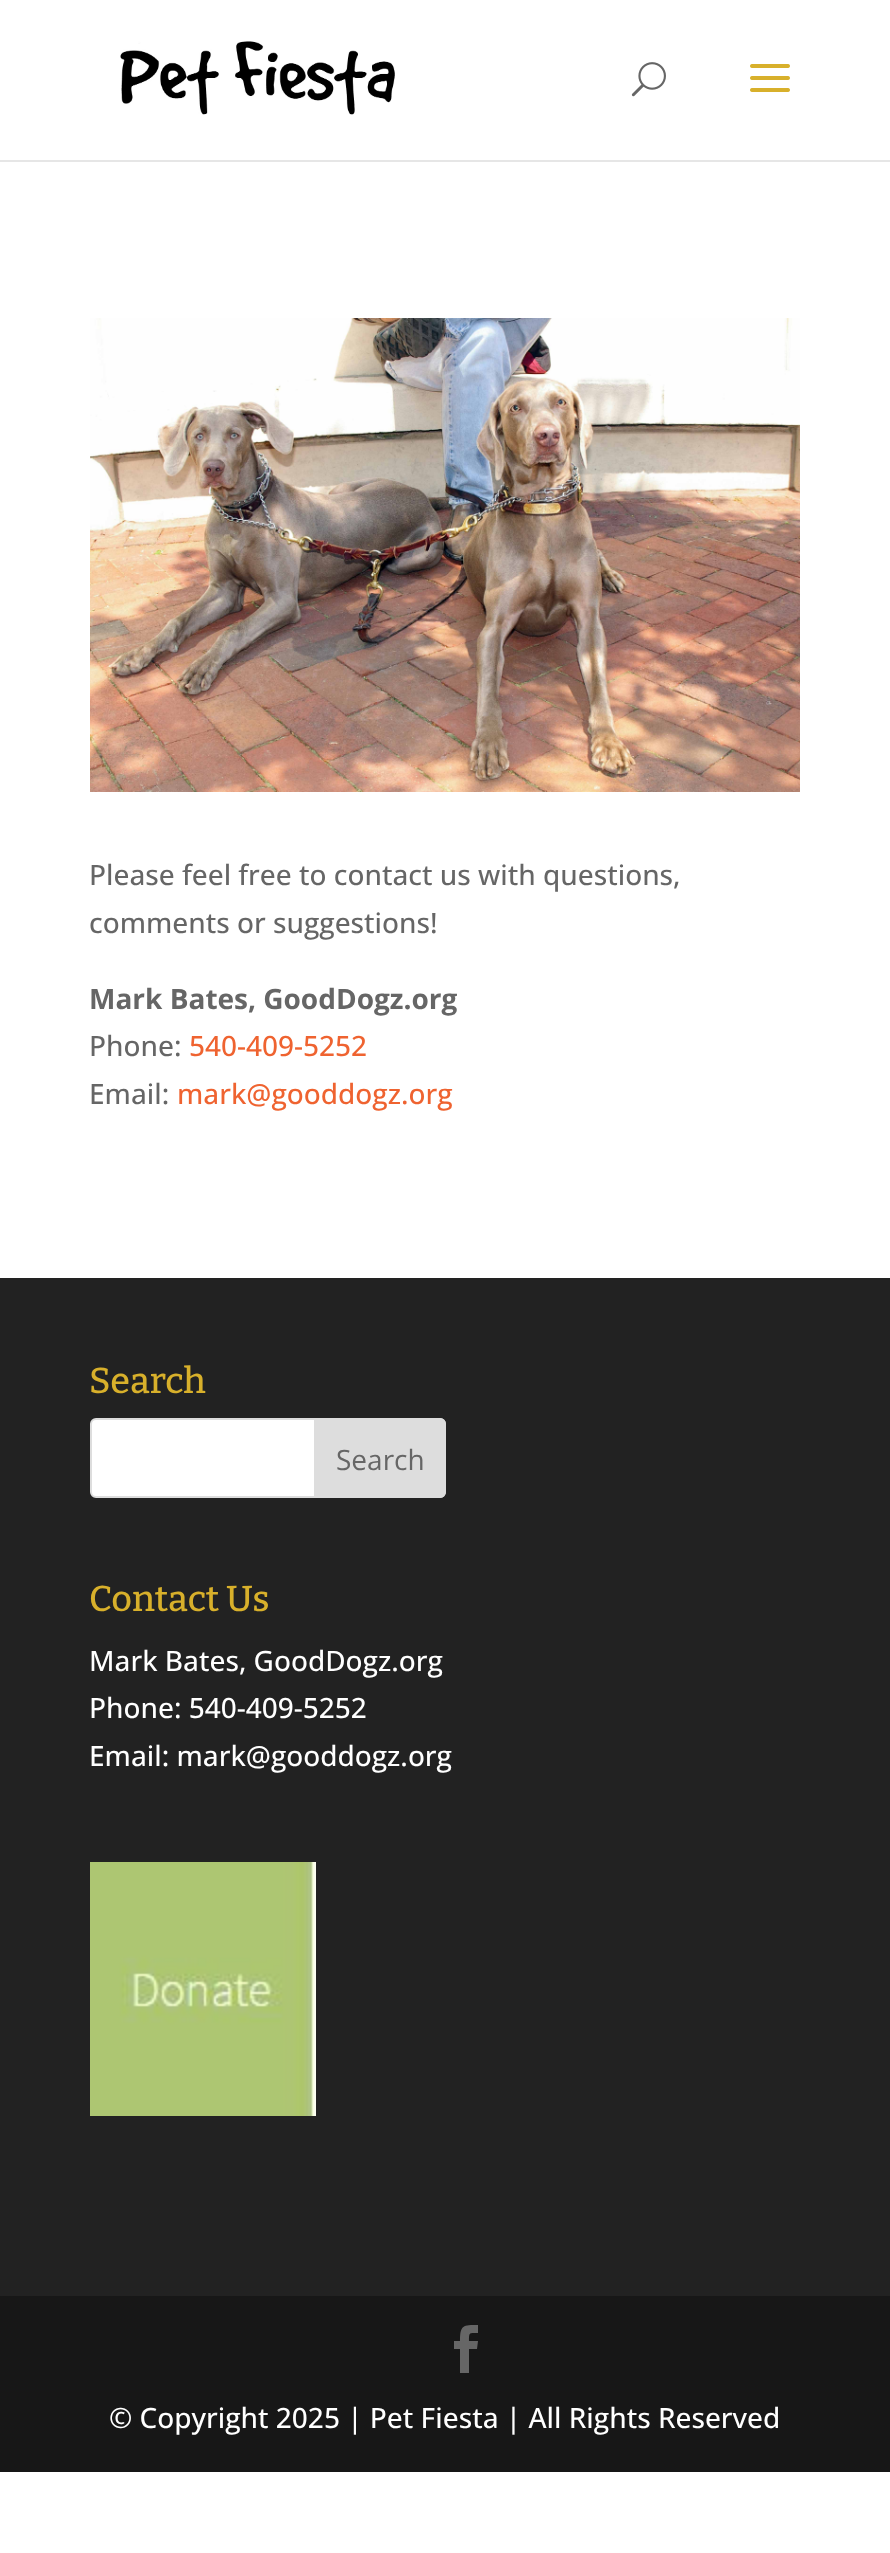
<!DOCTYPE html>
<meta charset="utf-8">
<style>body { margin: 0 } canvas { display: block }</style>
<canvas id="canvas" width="890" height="2553"></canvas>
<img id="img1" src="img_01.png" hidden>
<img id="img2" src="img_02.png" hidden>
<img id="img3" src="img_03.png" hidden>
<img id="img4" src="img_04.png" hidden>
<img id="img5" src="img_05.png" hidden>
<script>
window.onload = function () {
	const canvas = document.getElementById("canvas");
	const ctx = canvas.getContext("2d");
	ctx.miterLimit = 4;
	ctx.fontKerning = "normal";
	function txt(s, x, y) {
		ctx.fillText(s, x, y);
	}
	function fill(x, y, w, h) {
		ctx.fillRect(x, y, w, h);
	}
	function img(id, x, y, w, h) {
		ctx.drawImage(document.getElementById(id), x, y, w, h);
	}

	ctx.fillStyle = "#FFFFFF";
	fill(0, 0, 890, 2553);
	ctx.fillStyle = "#E6E6E6";
	fill(0, 160, 890, 2);
	img("img1", 120, 41, 275, 74);
	img("img2", 631, 62, 35, 35);
	img("img3", 750, 64, 40, 28);
	img("img4", 90, 318, 710, 474);
	ctx.fillStyle = "#222222";
	fill(0, 1278, 890, 1018);
	ctx.fillStyle = "#FFFFFF";
	ctx.beginPath();
	ctx.roundRect(91, 1419, 354, 78, 5);
	ctx.fill();
	ctx.strokeStyle = "#DDDDDD";
	ctx.lineWidth = 2;
	ctx.stroke();
	ctx.fillStyle = "#DDDDDD";
	ctx.beginPath();
	ctx.roundRect(315, 1419, 130, 78, [0, 5, 5, 0]);
	ctx.fill();
	ctx.stroke();
	img("img5", 90, 1862, 226, 254);
	ctx.fillStyle = "#171717";
	fill(0, 2296, 890, 176);
	ctx.fillStyle = "#666666";
	ctx.beginPath();
	ctx.moveTo(460, 2373);
	ctx.lineTo(469, 2373);
	ctx.lineTo(469, 2349);
	ctx.lineTo(477, 2349);
	ctx.lineTo(478, 2341);
	ctx.lineTo(469, 2341);
	ctx.bezierCurveTo(469, 2332, 469, 2333, 478, 2333);
	ctx.lineTo(478, 2325);
	ctx.bezierCurveTo(463, 2325, 460, 2325, 460, 2341);
	ctx.lineTo(454, 2341);
	ctx.lineTo(454, 2349);
	ctx.lineTo(460, 2349);
	ctx.closePath();
	ctx.fill();
	ctx.font = "500 28px Open Sans";
	txt("Please feel free to contact us with questions,", 89, 885);
	txt("comments or suggestions!", 89, 933);
	ctx.font = "bold 28px Open Sans";
	txt("Mark Bates, GoodDogz.org", 89, 1009);
	ctx.font = "500 28px Open Sans";
	txt("Phone:", 89, 1056);
	ctx.fillStyle = "#EF6330";
	txt("540-409-5252", 189, 1056);
	ctx.fillStyle = "#666666";
	txt("Email:", 89, 1104);
	ctx.fillStyle = "#EF6330";
	txt("mark@gooddogz.org", 177, 1104);
	ctx.font = "500 36px Bitter";
	ctx.fillStyle = "#D8B02B";
	txt("Search", 89, 1393);
	ctx.font = "28px Open Sans";
	ctx.fillStyle = "#666666";
	txt("Search", 336, 1470);
	ctx.font = "500 36px Bitter";
	ctx.fillStyle = "#D8B02B";
	txt("Contact Us", 89, 1611);
	ctx.font = "500 28px Open Sans";
	ctx.fillStyle = "#FFFFFF";
	txt("Mark Bates, GoodDogz.org", 89, 1671);
	txt("Phone: 540-409-5252", 89, 1718);
	txt("Email: mark@gooddogz.org", 89, 1766);
	txt("© Copyright 2025 | Pet Fiesta | All Rights Reserved", 109, 2428);
};
</script>
